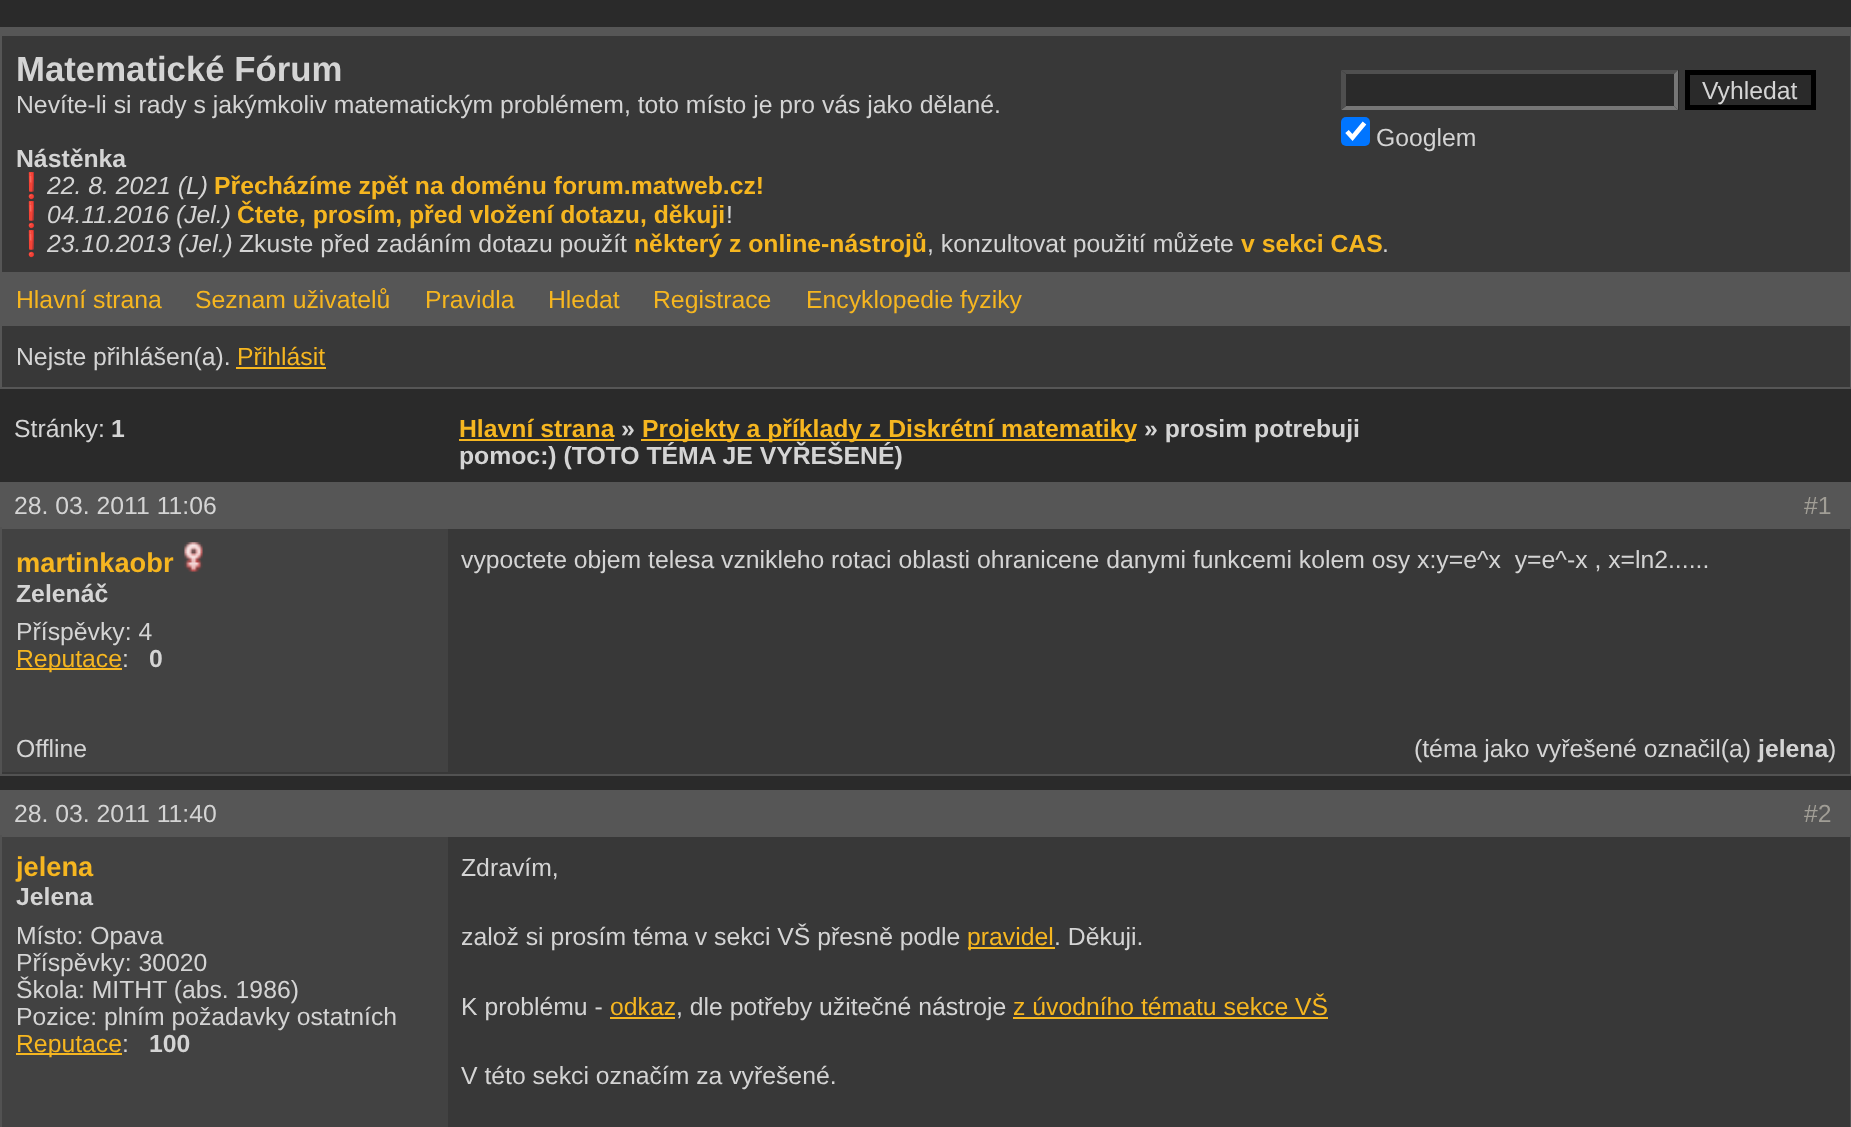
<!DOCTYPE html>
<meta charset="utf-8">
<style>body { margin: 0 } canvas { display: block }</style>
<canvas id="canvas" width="1851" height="1127"></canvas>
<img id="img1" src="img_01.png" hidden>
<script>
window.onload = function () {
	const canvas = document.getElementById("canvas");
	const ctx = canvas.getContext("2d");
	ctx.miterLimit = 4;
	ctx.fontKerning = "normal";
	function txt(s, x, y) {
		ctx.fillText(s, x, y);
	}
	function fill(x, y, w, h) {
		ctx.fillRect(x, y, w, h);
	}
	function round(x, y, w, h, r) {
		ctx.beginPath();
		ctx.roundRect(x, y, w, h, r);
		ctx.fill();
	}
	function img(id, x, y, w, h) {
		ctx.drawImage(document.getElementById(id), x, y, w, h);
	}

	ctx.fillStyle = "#2A2A2A";
	fill(0, 0, 1851, 1127);
	ctx.fillStyle = "#383838";
	fill(2, 36, 1848, 351);
	ctx.fillStyle = "#565656";
	fill(2, 27, 1848, 9);
	fill(1850, 27, 1, 362);
	fill(0, 387, 1851, 2);
	fill(0, 27, 2, 362);
	ctx.fillStyle = "#2A2A2A";
	fill(1341, 70, 338, 40);
	ctx.fillStyle = "#4F4F4F";
	ctx.beginPath();
	ctx.moveTo(1341, 70);
	ctx.lineTo(1678, 70);
	ctx.lineTo(1674, 74);
	ctx.lineTo(1346, 74);
	ctx.closePath();
	ctx.fill();
	ctx.fillStyle = "#767676";
	ctx.beginPath();
	ctx.moveTo(1678, 70);
	ctx.lineTo(1678, 110);
	ctx.lineTo(1674, 106);
	ctx.lineTo(1674, 74);
	ctx.closePath();
	ctx.fill();
	ctx.beginPath();
	ctx.moveTo(1678, 110);
	ctx.lineTo(1341, 110);
	ctx.lineTo(1346, 106);
	ctx.lineTo(1674, 106);
	ctx.closePath();
	ctx.fill();
	ctx.fillStyle = "#4F4F4F";
	ctx.beginPath();
	ctx.moveTo(1341, 110);
	ctx.lineTo(1341, 70);
	ctx.lineTo(1346, 74);
	ctx.lineTo(1346, 106);
	ctx.closePath();
	ctx.fill();
	ctx.fillStyle = "#2A2A2A";
	ctx.beginPath();
	ctx.rect(1687.5, 72.5, 126, 35);
	ctx.fill();
	ctx.strokeStyle = "#000000";
	ctx.lineWidth = 5;
	ctx.stroke();
	ctx.fillStyle = "#0075FF";
	round(1341, 117, 29, 29, 5);
	ctx.beginPath();
	ctx.moveTo(1347, 131.5);
	ctx.lineTo(1352.5, 137.5);
	ctx.lineTo(1364.5, 123);
	ctx.strokeStyle = "#FFFFFF";
	ctx.lineWidth = 4.7;
	ctx.stroke();
	ctx.fillStyle = "#565656";
	fill(2, 272, 1848, 54);
	ctx.fillStyle = "#F6B620";
	fill(236, 367, 90, 2);
	fill(459, 439, 155, 2);
	fill(641, 439, 495, 2);
	ctx.fillStyle = "#383838";
	fill(2, 529, 1848, 245);
	ctx.fillStyle = "#565656";
	fill(0, 482, 1851, 47);
	ctx.fillStyle = "#525252";
	fill(1850, 527, 1, 249);
	fill(0, 774, 1851, 2);
	fill(0, 527, 2, 249);
	ctx.fillStyle = "#424242";
	fill(2, 529, 446, 243);
	img("img1", 184, 542, 19, 30);
	ctx.fillStyle = "#F6B620";
	fill(16, 668, 106, 2);
	ctx.fillStyle = "#383838";
	fill(448, 837, 1402, 290);
	ctx.fillStyle = "#565656";
	fill(0, 790, 1851, 47);
	ctx.fillStyle = "#525252";
	fill(1850, 835, 1, 292);
	fill(0, 835, 2, 292);
	ctx.fillStyle = "#424242";
	fill(2, 837, 446, 290);
	ctx.fillStyle = "#F6B620";
	fill(16, 1053, 106, 2);
	fill(968, 947, 87, 2);
	fill(610, 1017, 65, 2);
	fill(1013, 1017, 315, 2);
	ctx.font = "bold 34.75px Liberation Sans";
	ctx.fillStyle = "#D4D4D4";
	txt("Matematické Fórum", 16, 81);
	ctx.font = "24.75px Liberation Sans";
	txt("Nevíte-li si rady s jakýmkoliv matematickým problémem, toto místo je pro vás jako dělané.", 16, 113);
	ctx.font = "bold 24.75px Liberation Sans";
	txt("Nástěnka", 16, 167);
	ctx.font = "24.75px Noto Color Emoji";
	txt("❗", 16, 194);
	ctx.font = "italic 24.75px Liberation Sans";
	txt("22. 8. 2021 (L)", 47, 194);
	ctx.font = "bold 24.75px Liberation Sans";
	ctx.fillStyle = "#F6B620";
	txt("Přecházíme zpět na doménu forum.matweb.cz!", 214, 194);
	ctx.font = "24.75px Noto Color Emoji";
	ctx.fillStyle = "#D4D4D4";
	txt("❗", 16, 223);
	ctx.font = "italic 24.75px Liberation Sans";
	txt("04.11.2016 (Jel.)", 47, 223);
	ctx.font = "bold 24.75px Liberation Sans";
	ctx.fillStyle = "#F6B620";
	txt("Čtete, prosím, před vložení dotazu, děkuji", 237, 223);
	ctx.font = "24.75px Liberation Sans";
	ctx.fillStyle = "#D4D4D4";
	txt("!", 726, 223);
	ctx.font = "24.75px Noto Color Emoji";
	txt("❗", 16, 252);
	ctx.font = "italic 24.75px Liberation Sans";
	txt("23.10.2013 (Jel.)", 47, 252);
	ctx.font = "24.75px Liberation Sans";
	txt("Zkuste před zadáním dotazu použít", 239, 252);
	ctx.font = "bold 24.75px Liberation Sans";
	ctx.fillStyle = "#F6B620";
	txt("některý z online-nástrojů", 634, 252);
	ctx.font = "24.75px Liberation Sans";
	ctx.fillStyle = "#D4D4D4";
	txt(", konzultovat použití můžete", 927, 252);
	ctx.font = "bold 24.75px Liberation Sans";
	ctx.fillStyle = "#F6B620";
	txt("v sekci CAS", 1241, 252);
	ctx.font = "24.75px Liberation Sans";
	ctx.fillStyle = "#D4D4D4";
	txt(".", 1382, 252);
	txt("Vyhledat", 1702, 99);
	txt("Googlem", 1376, 146);
	ctx.fillStyle = "#F6B620";
	txt("Hlavní strana", 16, 308);
	txt("Seznam uživatelů", 195, 308);
	txt("Pravidla", 425, 308);
	txt("Hledat", 548, 308);
	txt("Registrace", 653, 308);
	txt("Encyklopedie fyziky", 806, 308);
	ctx.fillStyle = "#D4D4D4";
	txt("Nejste přihlášen(a).", 16, 365);
	ctx.fillStyle = "#F6B620";
	txt("Přihlásit", 237, 365);
	ctx.fillStyle = "#D4D4D4";
	txt("Stránky:", 14, 437);
	ctx.font = "bold 24.75px Liberation Sans";
	txt("1", 111, 437);
	ctx.fillStyle = "#F6B620";
	txt("Hlavní strana", 459, 437);
	ctx.fillStyle = "#D4D4D4";
	txt("»", 621, 437);
	ctx.fillStyle = "#F6B620";
	txt("Projekty a příklady z Diskrétní matematiky", 642, 437);
	ctx.fillStyle = "#D4D4D4";
	txt("» prosim potrebuji", 1144, 437);
	txt("pomoc:) (TOTO TÉMA JE VYŘEŠENÉ)", 459, 464);
	ctx.font = "24.75px Liberation Sans";
	txt("28. 03. 2011 11:06", 14, 514);
	ctx.fillStyle = "#A19E96";
	txt("#1", 1804, 514);
	ctx.font = "bold 27.25px Liberation Sans";
	ctx.fillStyle = "#F6B620";
	txt("martinkaobr", 16, 572);
	ctx.font = "bold 24.75px Liberation Sans";
	ctx.fillStyle = "#D4D4D4";
	txt("Zelenáč", 16, 602);
	ctx.font = "24.75px Liberation Sans";
	txt("Příspěvky: 4", 16, 640);
	ctx.fillStyle = "#F6B620";
	txt("Reputace", 16, 667);
	ctx.fillStyle = "#D4D4D4";
	txt(":", 122, 667);
	ctx.font = "bold 24.75px Liberation Sans";
	txt("0", 149, 667);
	ctx.font = "24.75px Liberation Sans";
	txt("vypoctete objem telesa vznikleho rotaci oblasti ohranicene danymi funkcemi kolem osy x:y=e^x  y=e^-x , x=ln2......", 461, 568);
	txt("Offline", 16, 757);
	txt("(téma jako vyřešené označil(a)", 1414, 757);
	ctx.font = "bold 24.75px Liberation Sans";
	txt("jelena", 1758, 757);
	ctx.font = "24.75px Liberation Sans";
	txt(")", 1828, 757);
	txt("28. 03. 2011 11:40", 14, 822);
	ctx.fillStyle = "#A19E96";
	txt("#2", 1804, 822);
	ctx.font = "bold 27.25px Liberation Sans";
	ctx.fillStyle = "#F6B620";
	txt("jelena", 16, 876);
	ctx.font = "bold 24.75px Liberation Sans";
	ctx.fillStyle = "#D4D4D4";
	txt("Jelena", 16, 905);
	ctx.font = "24.75px Liberation Sans";
	txt("Místo: Opava", 16, 944);
	txt("Příspěvky: 30020", 16, 971);
	txt("Škola: MITHT (abs. 1986)", 16, 998);
	txt("Pozice: plním požadavky ostatních", 16, 1025);
	ctx.fillStyle = "#F6B620";
	txt("Reputace", 16, 1052);
	ctx.fillStyle = "#D4D4D4";
	txt(":", 122, 1052);
	ctx.font = "bold 24.75px Liberation Sans";
	txt("100", 149, 1052);
	ctx.font = "24.75px Liberation Sans";
	txt("Zdravím,", 461, 876);
	txt("založ si prosím téma v sekci VŠ přesně podle", 461, 945);
	ctx.fillStyle = "#F6B620";
	txt("pravidel", 967, 945);
	ctx.fillStyle = "#D4D4D4";
	txt(". Děkuji.", 1054, 945);
	txt("K problému -", 461, 1015);
	ctx.fillStyle = "#F6B620";
	txt("odkaz", 610, 1015);
	ctx.fillStyle = "#D4D4D4";
	txt(", dle potřeby užitečné nástroje", 676, 1015);
	ctx.fillStyle = "#F6B620";
	txt("z úvodního tématu sekce VŠ", 1013, 1015);
	ctx.fillStyle = "#D4D4D4";
	txt("V této sekci označím za vyřešené.", 461, 1084);
};
</script>
